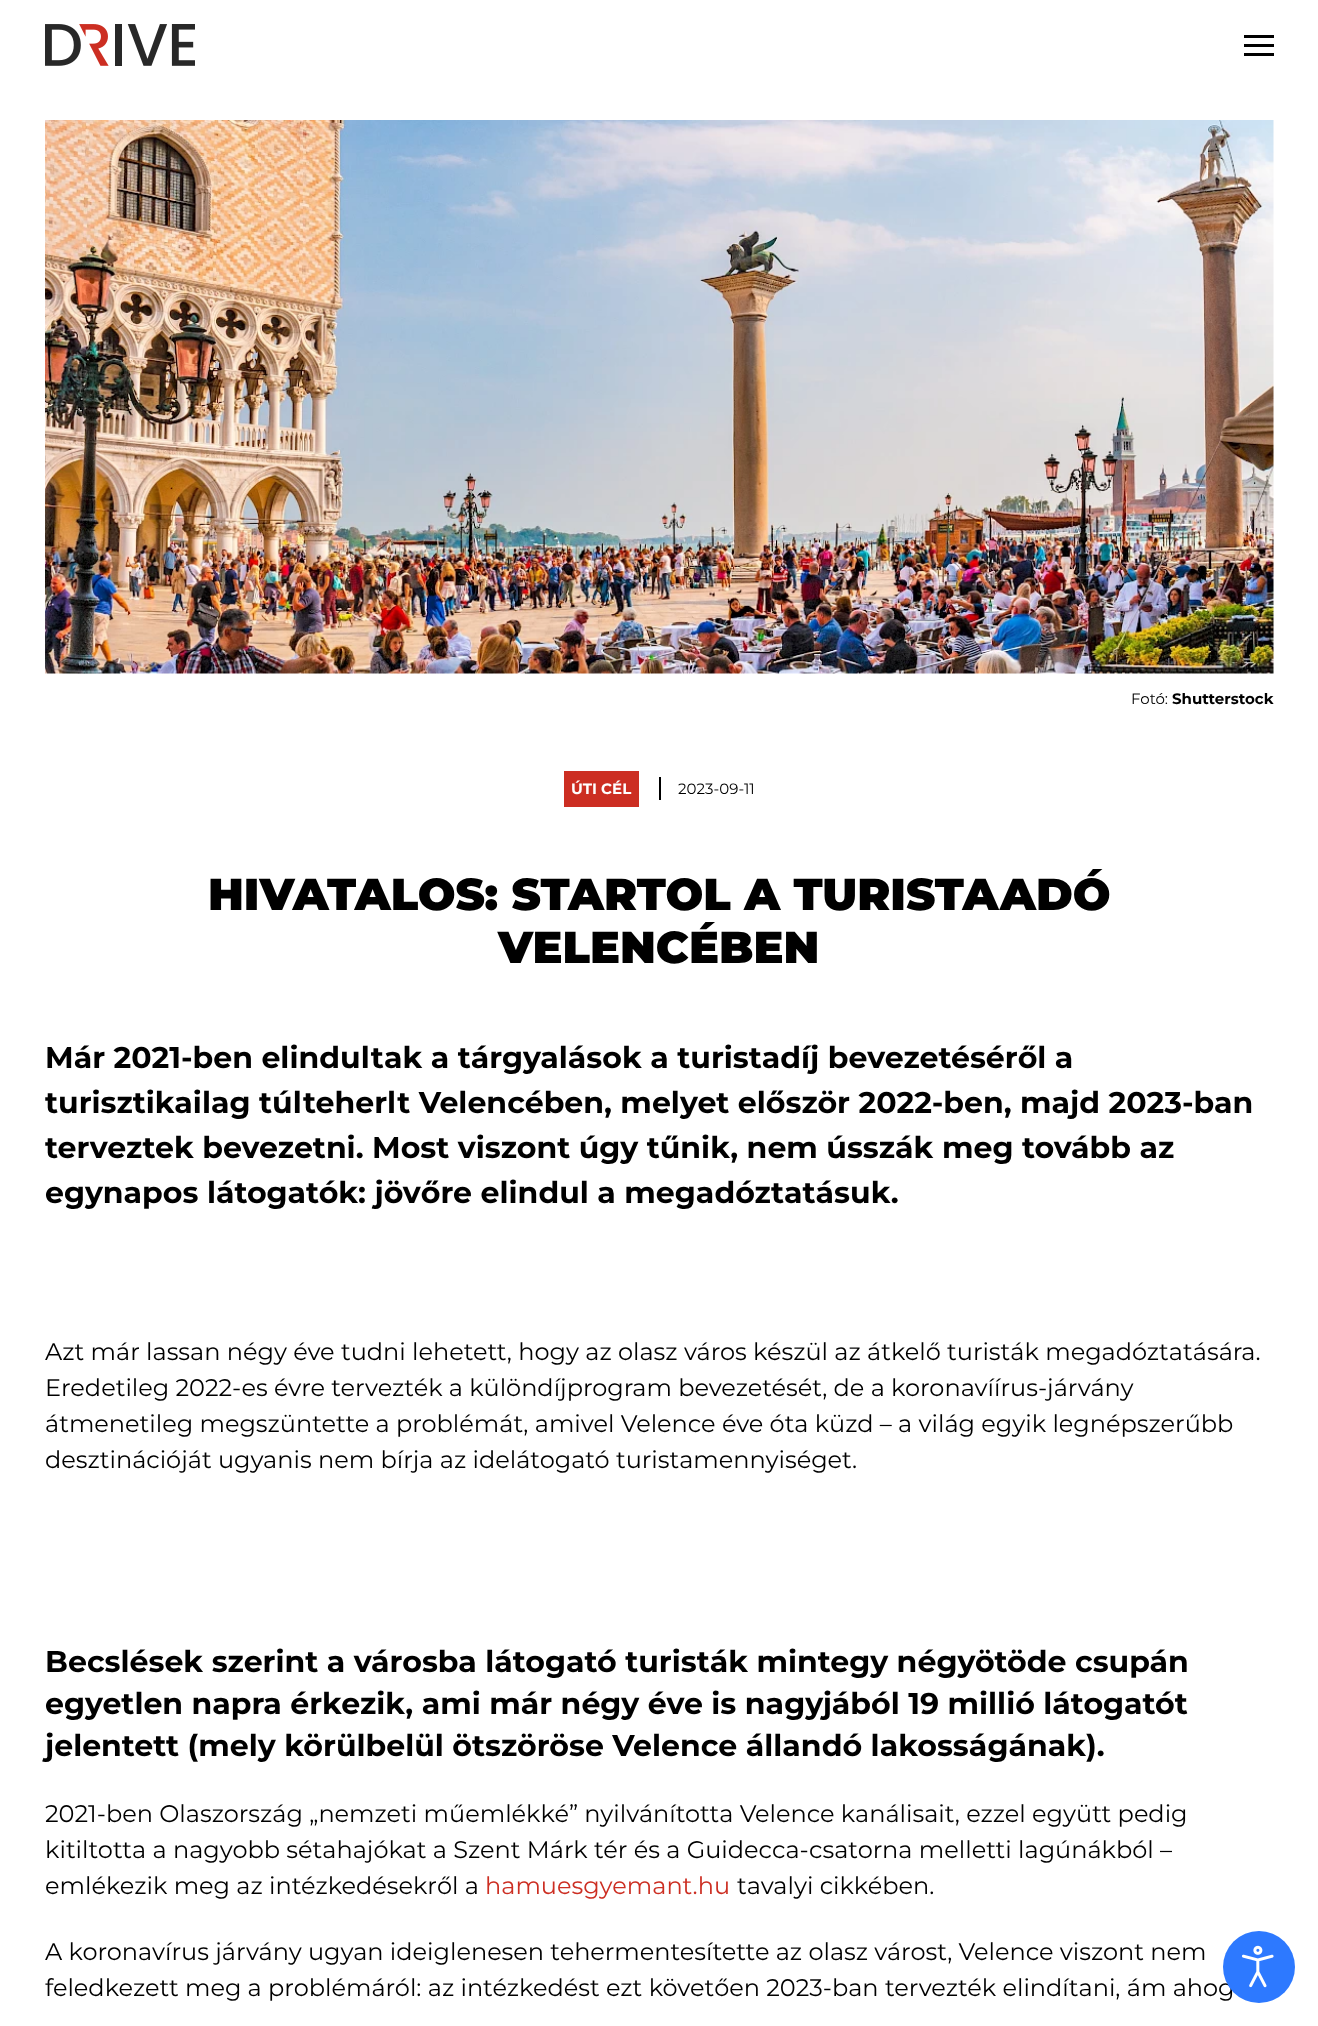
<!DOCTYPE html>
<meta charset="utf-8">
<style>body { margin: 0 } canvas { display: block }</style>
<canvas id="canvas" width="1318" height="2026"></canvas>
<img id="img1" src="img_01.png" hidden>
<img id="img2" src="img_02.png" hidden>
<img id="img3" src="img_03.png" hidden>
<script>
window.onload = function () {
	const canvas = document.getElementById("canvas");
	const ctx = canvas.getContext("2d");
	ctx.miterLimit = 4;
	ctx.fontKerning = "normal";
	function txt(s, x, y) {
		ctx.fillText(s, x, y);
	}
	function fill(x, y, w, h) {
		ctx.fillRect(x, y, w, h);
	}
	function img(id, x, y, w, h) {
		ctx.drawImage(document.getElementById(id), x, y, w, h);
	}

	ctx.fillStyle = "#FFFFFF";
	fill(0, 0, 1318, 2026);
	img("img1", 45, 24, 150, 42);
	ctx.fillStyle = "#000000";
	fill(1244, 35, 30, 3);
	fill(1244, 44, 30, 3);
	fill(1244, 53, 30, 3);
	img("img2", 45, 120, 1229, 554);
	ctx.fillStyle = "#CC2E22";
	fill(564, 771, 75, 36);
	ctx.fillStyle = "#000000";
	fill(659, 777, 2, 23);
	ctx.font = "100 15px Montserrat";
	txt("Fotó:", 1131, 704);
	ctx.font = "100 15px 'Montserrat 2'";
	txt("Shutterstock", 1172, 704);
	ctx.fillStyle = "#FFFFFF";
	txt("ÚTI CÉL", 571, 794);
	ctx.font = "100 15px Montserrat";
	ctx.fillStyle = "#000000";
	txt("2023-09-11", 678, 794);
	ctx.font = "100 44.6px 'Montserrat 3'";
	txt("HIVATALOS: STARTOL A TURISTAADÓ", 208, 910);
	txt("VELENCÉBEN", 498, 963);
	ctx.font = "100 30px 'Montserrat 2'";
	txt("Már 2021-ben elindultak a tárgyalások a turistadíj bevezetéséről a", 45, 1068);
	txt("turisztikailag túlteherlt Velencében, melyet először 2022-ben, majd 2023-ban", 45, 1113);
	txt("terveztek bevezetni. Most viszont úgy tűnik, nem ússzák meg tovább az", 45, 1158);
	txt("egynapos látogatók: jövőre elindul a megadóztatásuk.", 45, 1203);
	ctx.font = "100 24px Montserrat";
	txt("Azt már lassan négy éve tudni lehetett, hogy az olasz város készül az átkelő turisták megadóztatására.", 45, 1360);
	txt("Eredetileg 2022-es évre tervezték a különdíjprogram bevezetését, de a koronavíírus-járvány", 45, 1396);
	txt("átmenetileg megszüntette a problémát, amivel Velence éve óta küzd – a világ egyik legnépszerűbb", 45, 1432);
	txt("desztinációját ugyanis nem bírja az idelátogató turistamennyiséget.", 45, 1468);
	ctx.font = "100 30px 'Montserrat 2'";
	txt("Becslések szerint a városba látogató turisták mintegy négyötöde csupán", 45, 1672);
	txt("egyetlen napra érkezik, ami már négy éve is nagyjából 19 millió látogatót", 45, 1714);
	txt("jelentett (mely körülbelül ötszöröse Velence állandó lakosságának).", 45, 1756);
	ctx.font = "100 24px Montserrat";
	txt("2021-ben Olaszország „nemzeti műemlékké” nyilvánította Velence kanálisait, ezzel együtt pedig", 45, 1822);
	txt("kitiltotta a nagyobb sétahajókat a Szent Márk tér és a Guidecca-csatorna melletti lagúnákból –", 45, 1858);
	txt("emlékezik meg az intézkedésekről a", 45, 1894);
	ctx.fillStyle = "#CC2E22";
	txt("hamuesgyemant.hu", 485, 1894);
	ctx.fillStyle = "#000000";
	txt("tavalyi cikkében.", 737, 1894);
	txt("A koronavírus járvány ugyan ideiglenesen tehermentesítette az olasz várost, Velence viszont nem", 45, 1960);
	txt("feledkezett meg a problémáról: az intézkedést ezt követően 2023-ban tervezték elindítani, ám ahog", 45, 1996);
	ctx.fillStyle = "#2D79FF";
	ctx.beginPath();
	ctx.arc(1259, 1967, 36, 0, Math.PI * 2);
	ctx.fill();
	img("img3", 1241, 1945, 33, 43);
};
</script>
